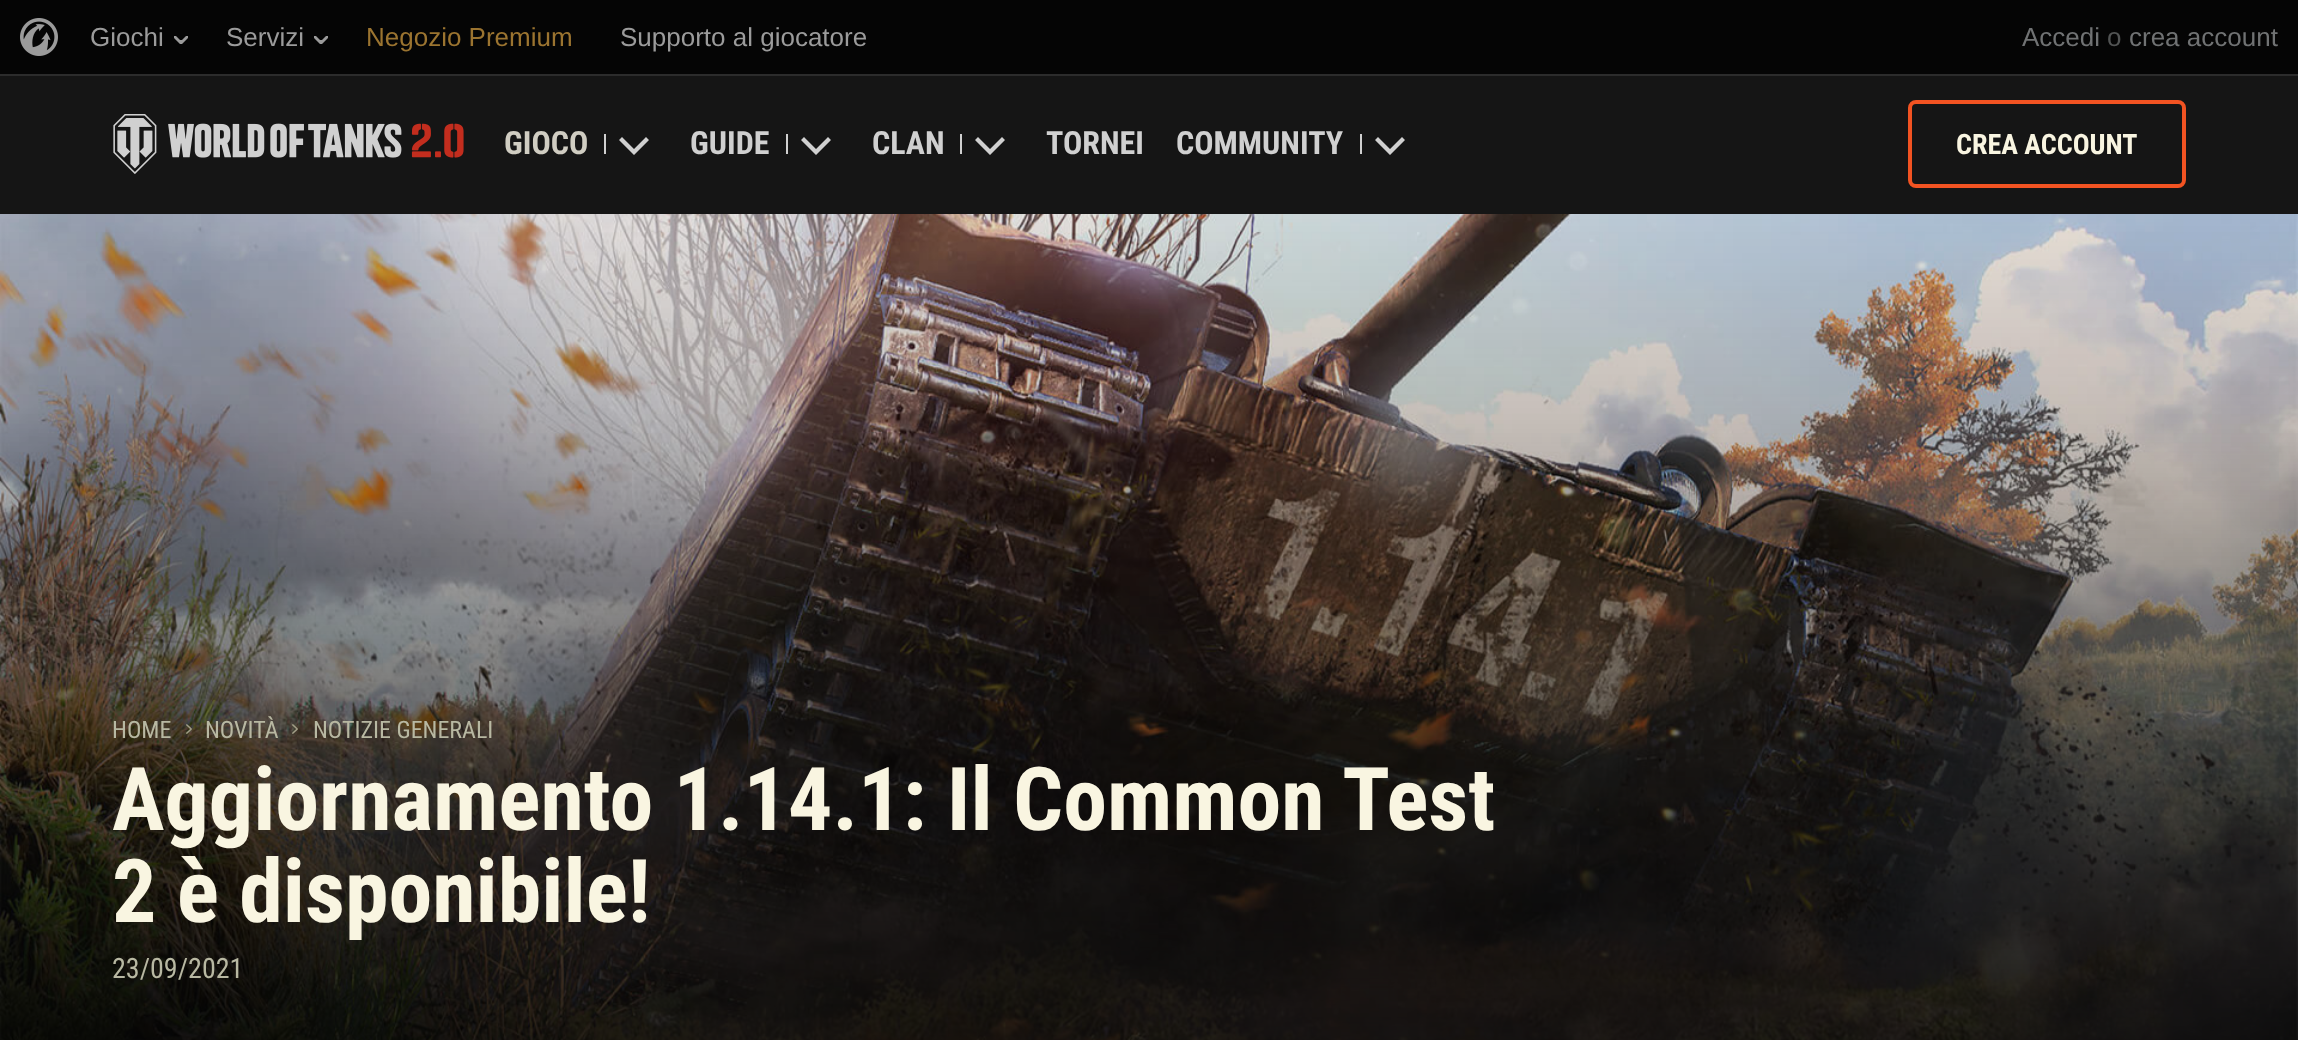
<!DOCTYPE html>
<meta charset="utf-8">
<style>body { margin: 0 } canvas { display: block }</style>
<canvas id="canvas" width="2298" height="1040"></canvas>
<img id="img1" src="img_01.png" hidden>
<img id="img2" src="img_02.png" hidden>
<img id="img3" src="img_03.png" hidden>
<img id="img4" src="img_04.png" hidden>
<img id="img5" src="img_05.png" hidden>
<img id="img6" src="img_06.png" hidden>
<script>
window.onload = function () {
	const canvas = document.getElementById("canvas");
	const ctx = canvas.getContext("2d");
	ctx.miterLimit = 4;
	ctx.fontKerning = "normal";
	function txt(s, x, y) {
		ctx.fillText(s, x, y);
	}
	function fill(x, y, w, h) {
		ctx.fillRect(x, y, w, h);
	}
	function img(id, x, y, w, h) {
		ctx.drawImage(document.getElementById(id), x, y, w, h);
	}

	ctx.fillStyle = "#FFFFFF";
	fill(0, 0, 2298, 1040);
	ctx.strokeStyle = "#2C2C2C";
	ctx.lineWidth = 2;
	ctx.strokeRect(-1, -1, 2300, 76);
	ctx.fillStyle = "#050505";
	fill(0, 0, 2298, 74);
	img("img1", 20, 18, 38, 38);
	img("img2", 174, 36, 14, 8);
	img("img2", 314, 36, 14, 8);
	ctx.fillStyle = "#151515";
	fill(0, 76, 2298, 138);
	img("img3", 113, 114, 351, 60);
	ctx.fillStyle = "#D0D0D0";
	fill(604, 134, 2, 20);
	ctx.beginPath();
	ctx.moveTo(634, 155);
	ctx.lineTo(649, 140);
	ctx.lineTo(646, 137);
	ctx.lineTo(634, 149);
	ctx.lineTo(622, 137);
	ctx.lineTo(619, 140);
	ctx.closePath();
	ctx.fill();
	fill(786, 134, 2, 20);
	ctx.beginPath();
	ctx.moveTo(816, 155);
	ctx.lineTo(831, 140);
	ctx.lineTo(828, 137);
	ctx.lineTo(816, 149);
	ctx.lineTo(804, 137);
	ctx.lineTo(801, 140);
	ctx.closePath();
	ctx.fill();
	fill(960, 134, 2, 20);
	ctx.beginPath();
	ctx.moveTo(990, 155);
	ctx.lineTo(1005, 140);
	ctx.lineTo(1002, 137);
	ctx.lineTo(990, 149);
	ctx.lineTo(978, 137);
	ctx.lineTo(975, 140);
	ctx.closePath();
	ctx.fill();
	fill(1360, 134, 2, 20);
	ctx.beginPath();
	ctx.moveTo(1390, 155);
	ctx.lineTo(1405, 140);
	ctx.lineTo(1402, 137);
	ctx.lineTo(1390, 149);
	ctx.lineTo(1378, 137);
	ctx.lineTo(1375, 140);
	ctx.closePath();
	ctx.fill();
	ctx.beginPath();
	ctx.roundRect(1910, 102, 274, 84, 6);
	ctx.strokeStyle = "#F25322";
	ctx.lineWidth = 4;
	ctx.stroke();
	img("img4", 0, 214, 2298, 826);
	img("img5", 186, 724, 6, 10);
	img("img6", 292, 724, 6, 10);
	ctx.font = "26px Liberation Sans";
	ctx.fillStyle = "#9B9B9B";
	txt("Giochi", 90, 46);
	txt("Servizi", 226, 46);
	ctx.fillStyle = "#9B7430";
	txt("Negozio Premium", 366, 46);
	ctx.fillStyle = "#9B9B9B";
	txt("Supporto al giocatore", 620, 46);
	ctx.fillStyle = "#707273";
	txt("Accedi", 2022, 46);
	ctx.fillStyle = "#525454";
	txt("o", 2107, 46);
	ctx.fillStyle = "#707273";
	txt("crea account", 2129, 46);
	ctx.font = "bold 32px Roboto Condensed";
	ctx.fillStyle = "#D0CDC2";
	txt("GIOCO", 504, 154);
	ctx.fillStyle = "#D0D0D0";
	txt("GUIDE", 690, 154);
	txt("CLAN", 872, 154);
	txt("TORNEI", 1046, 154);
	txt("COMMUNITY", 1176, 154);
	ctx.font = "bold 28px Roboto Condensed";
	ctx.fillStyle = "#F9F5E1";
	txt("CREA ACCOUNT", 1956, 154);
	ctx.font = "24px Roboto Condensed";
	ctx.fillStyle = "#B8B8A2";
	txt("HOME", 112, 738);
	txt("NOVITÀ", 205, 738);
	txt("NOTIZIE GENERALI", 313, 738);
	ctx.font = "bold 88px Roboto Condensed";
	ctx.fillStyle = "#F9F5E1";
	txt("Aggiornamento 1.14.1: Il Common Test", 112, 830);
	txt("2 è disponibile!", 112, 922);
	ctx.font = "28px Roboto Condensed";
	ctx.fillStyle = "#B8B8A2";
	txt("23/09/2021", 112, 978);
};
</script>
